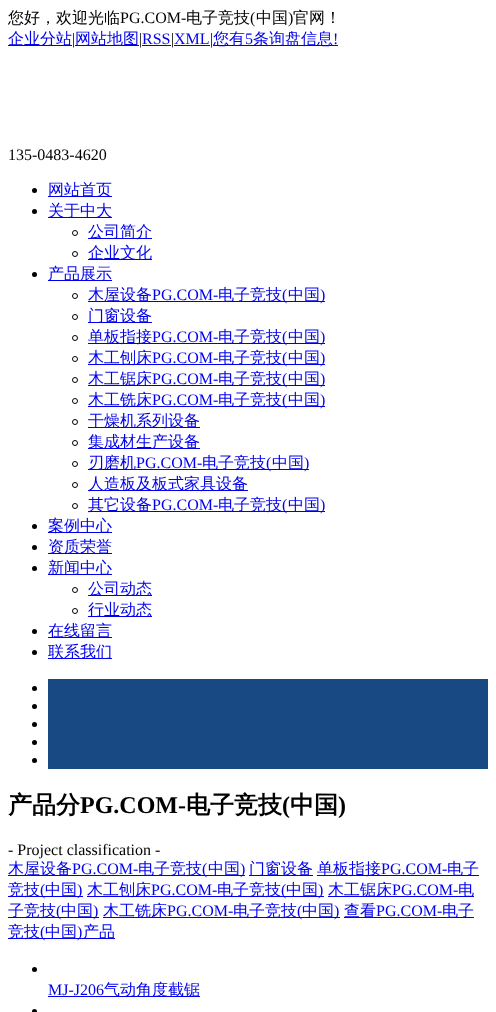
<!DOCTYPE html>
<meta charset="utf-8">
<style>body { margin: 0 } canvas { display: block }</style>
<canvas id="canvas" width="496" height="1012"></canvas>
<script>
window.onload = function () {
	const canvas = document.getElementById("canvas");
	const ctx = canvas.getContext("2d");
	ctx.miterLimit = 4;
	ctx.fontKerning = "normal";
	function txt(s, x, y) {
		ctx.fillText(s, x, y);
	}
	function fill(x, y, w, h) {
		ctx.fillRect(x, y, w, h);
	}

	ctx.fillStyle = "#FFFFFF";
	fill(0, 0, 496, 1012);
	ctx.fillStyle = "#0000EE";
	fill(8, 45, 64, 1);
	fill(75, 45, 64, 1);
	fill(142, 45, 29, 1);
	fill(174, 45, 36, 1);
	fill(213, 45, 125, 1);
	ctx.fillStyle = "#000000";
	ctx.beginPath();
	ctx.arc(34.5, 190.5, 2.5, 0, Math.PI * 2);
	ctx.fill();
	ctx.fillStyle = "#0000EE";
	fill(48, 196, 64, 1);
	ctx.fillStyle = "#000000";
	ctx.beginPath();
	ctx.arc(34.5, 211.5, 2.5, 0, Math.PI * 2);
	ctx.fill();
	ctx.fillStyle = "#0000EE";
	fill(48, 217, 64, 1);
	ctx.beginPath();
	ctx.arc(75, 233, 2.5, 0, Math.PI * 2);
	ctx.strokeStyle = "#000000";
	ctx.stroke();
	fill(88, 238, 64, 1);
	ctx.beginPath();
	ctx.arc(75, 254, 2.5, 0, Math.PI * 2);
	ctx.stroke();
	fill(88, 259, 64, 1);
	ctx.fillStyle = "#000000";
	ctx.beginPath();
	ctx.arc(34.5, 274.5, 2.5, 0, Math.PI * 2);
	ctx.fill();
	ctx.fillStyle = "#0000EE";
	fill(48, 280, 64, 1);
	ctx.beginPath();
	ctx.arc(75, 296, 2.5, 0, Math.PI * 2);
	ctx.stroke();
	fill(88, 301, 237, 1);
	ctx.beginPath();
	ctx.arc(75, 317, 2.5, 0, Math.PI * 2);
	ctx.stroke();
	fill(88, 322, 64, 1);
	ctx.beginPath();
	ctx.arc(75, 338, 2.5, 0, Math.PI * 2);
	ctx.stroke();
	fill(88, 343, 237, 1);
	ctx.beginPath();
	ctx.arc(75, 359, 2.5, 0, Math.PI * 2);
	ctx.stroke();
	fill(88, 364, 237, 1);
	ctx.beginPath();
	ctx.arc(75, 380, 2.5, 0, Math.PI * 2);
	ctx.stroke();
	fill(88, 385, 237, 1);
	ctx.beginPath();
	ctx.arc(75, 401, 2.5, 0, Math.PI * 2);
	ctx.stroke();
	fill(88, 406, 237, 1);
	ctx.beginPath();
	ctx.arc(75, 422, 2.5, 0, Math.PI * 2);
	ctx.stroke();
	fill(88, 427, 112, 1);
	ctx.beginPath();
	ctx.arc(75, 443, 2.5, 0, Math.PI * 2);
	ctx.stroke();
	fill(88, 448, 112, 1);
	ctx.beginPath();
	ctx.arc(75, 464, 2.5, 0, Math.PI * 2);
	ctx.stroke();
	fill(88, 469, 221, 1);
	ctx.beginPath();
	ctx.arc(75, 485, 2.5, 0, Math.PI * 2);
	ctx.stroke();
	fill(88, 490, 160, 1);
	ctx.beginPath();
	ctx.arc(75, 506, 2.5, 0, Math.PI * 2);
	ctx.stroke();
	fill(88, 511, 237, 1);
	ctx.fillStyle = "#000000";
	ctx.beginPath();
	ctx.arc(34.5, 526.5, 2.5, 0, Math.PI * 2);
	ctx.fill();
	ctx.fillStyle = "#0000EE";
	fill(48, 532, 64, 1);
	ctx.fillStyle = "#000000";
	ctx.beginPath();
	ctx.arc(34.5, 547.5, 2.5, 0, Math.PI * 2);
	ctx.fill();
	ctx.fillStyle = "#0000EE";
	fill(48, 553, 64, 1);
	ctx.fillStyle = "#000000";
	ctx.beginPath();
	ctx.arc(34.5, 568.5, 2.5, 0, Math.PI * 2);
	ctx.fill();
	ctx.fillStyle = "#0000EE";
	fill(48, 574, 64, 1);
	ctx.beginPath();
	ctx.arc(75, 590, 2.5, 0, Math.PI * 2);
	ctx.stroke();
	fill(88, 595, 64, 1);
	ctx.beginPath();
	ctx.arc(75, 611, 2.5, 0, Math.PI * 2);
	ctx.stroke();
	fill(88, 616, 64, 1);
	ctx.fillStyle = "#000000";
	ctx.beginPath();
	ctx.arc(34.5, 631.5, 2.5, 0, Math.PI * 2);
	ctx.fill();
	ctx.fillStyle = "#0000EE";
	fill(48, 637, 64, 1);
	ctx.fillStyle = "#000000";
	ctx.beginPath();
	ctx.arc(34.5, 652.5, 2.5, 0, Math.PI * 2);
	ctx.fill();
	ctx.fillStyle = "#0000EE";
	fill(48, 658, 64, 1);
	ctx.fillStyle = "#194982";
	fill(48, 679, 440, 90);
	ctx.fillStyle = "#000000";
	ctx.beginPath();
	ctx.arc(34.5, 688.5, 2.5, 0, Math.PI * 2);
	ctx.fill();
	ctx.beginPath();
	ctx.arc(34.5, 706.5, 2.5, 0, Math.PI * 2);
	ctx.fill();
	ctx.beginPath();
	ctx.arc(34.5, 724.5, 2.5, 0, Math.PI * 2);
	ctx.fill();
	ctx.beginPath();
	ctx.arc(34.5, 742.5, 2.5, 0, Math.PI * 2);
	ctx.fill();
	ctx.beginPath();
	ctx.arc(34.5, 760.5, 2.5, 0, Math.PI * 2);
	ctx.fill();
	ctx.fillStyle = "#0000EE";
	fill(8, 875, 237, 1);
	fill(249, 875, 64, 1);
	fill(317, 875, 162, 1);
	fill(8, 896, 75, 1);
	fill(87, 896, 237, 1);
	fill(328, 896, 146, 1);
	fill(8, 917, 91, 1);
	fill(103, 917, 237, 1);
	fill(344, 917, 130, 1);
	fill(8, 938, 107, 1);
	ctx.fillStyle = "#000000";
	ctx.beginPath();
	ctx.arc(34.5, 969.5, 2.5, 0, Math.PI * 2);
	ctx.fill();
	ctx.fillStyle = "#0000EE";
	fill(48, 996, 152, 1);
	ctx.fillStyle = "#000000";
	ctx.beginPath();
	ctx.arc(34.5, 1011.5, 2.5, 0, Math.PI * 2);
	ctx.fill();
	ctx.font = "500 16px WenQuanYi Zen Hei";
	txt("您好，欢迎光临", 8, 23);
	ctx.font = "16px Liberation Serif";
	txt("PG.COM-", 120, 23);
	ctx.font = "500 16px WenQuanYi Zen Hei";
	txt("电子竞技", 186, 23);
	ctx.font = "16px Liberation Serif";
	txt("(", 250, 23);
	ctx.font = "500 16px WenQuanYi Zen Hei";
	txt("中国", 256, 23);
	ctx.font = "16px Liberation Serif";
	txt(")", 288, 23);
	ctx.font = "500 16px WenQuanYi Zen Hei";
	txt("官网！", 293, 23);
	ctx.fillStyle = "#0000EE";
	txt("企业分站", 8, 44);
	ctx.font = "16px Liberation Serif";
	ctx.fillStyle = "#000000";
	txt("|", 72, 44);
	ctx.font = "500 16px WenQuanYi Zen Hei";
	ctx.fillStyle = "#0000EE";
	txt("网站地图", 75, 44);
	ctx.font = "16px Liberation Serif";
	ctx.fillStyle = "#000000";
	txt("|", 139, 44);
	ctx.fillStyle = "#0000EE";
	txt("RSS", 142, 44);
	ctx.fillStyle = "#000000";
	txt("|", 171, 44);
	ctx.fillStyle = "#0000EE";
	txt("XML", 174, 44);
	ctx.fillStyle = "#000000";
	txt("|", 210, 44);
	ctx.font = "500 16px WenQuanYi Zen Hei";
	ctx.fillStyle = "#0000EE";
	txt("您有", 213, 44);
	ctx.font = "16px Liberation Serif";
	txt("5", 245, 44);
	ctx.font = "500 16px WenQuanYi Zen Hei";
	txt("条询盘信息", 253, 44);
	ctx.font = "16px Liberation Serif";
	txt("!", 333, 44);
	ctx.fillStyle = "#000000";
	txt("135-0483-4620", 8, 160);
	ctx.font = "500 16px WenQuanYi Zen Hei";
	ctx.fillStyle = "#0000EE";
	txt("网站首页", 48, 195);
	txt("关于中大", 48, 216);
	txt("公司简介", 88, 237);
	txt("企业文化", 88, 258);
	txt("产品展示", 48, 279);
	txt("木屋设备", 88, 300);
	ctx.font = "16px Liberation Serif";
	txt("PG.COM-", 152, 300);
	ctx.font = "500 16px WenQuanYi Zen Hei";
	txt("电子竞技", 218, 300);
	ctx.font = "16px Liberation Serif";
	txt("(", 282, 300);
	ctx.font = "500 16px WenQuanYi Zen Hei";
	txt("中国", 288, 300);
	ctx.font = "16px Liberation Serif";
	txt(")", 320, 300);
	ctx.font = "500 16px WenQuanYi Zen Hei";
	txt("门窗设备", 88, 321);
	txt("单板指接", 88, 342);
	ctx.font = "16px Liberation Serif";
	txt("PG.COM-", 152, 342);
	ctx.font = "500 16px WenQuanYi Zen Hei";
	txt("电子竞技", 218, 342);
	ctx.font = "16px Liberation Serif";
	txt("(", 282, 342);
	ctx.font = "500 16px WenQuanYi Zen Hei";
	txt("中国", 288, 342);
	ctx.font = "16px Liberation Serif";
	txt(")", 320, 342);
	ctx.font = "500 16px WenQuanYi Zen Hei";
	txt("木工刨床", 88, 363);
	ctx.font = "16px Liberation Serif";
	txt("PG.COM-", 152, 363);
	ctx.font = "500 16px WenQuanYi Zen Hei";
	txt("电子竞技", 218, 363);
	ctx.font = "16px Liberation Serif";
	txt("(", 282, 363);
	ctx.font = "500 16px WenQuanYi Zen Hei";
	txt("中国", 288, 363);
	ctx.font = "16px Liberation Serif";
	txt(")", 320, 363);
	ctx.font = "500 16px WenQuanYi Zen Hei";
	txt("木工锯床", 88, 384);
	ctx.font = "16px Liberation Serif";
	txt("PG.COM-", 152, 384);
	ctx.font = "500 16px WenQuanYi Zen Hei";
	txt("电子竞技", 218, 384);
	ctx.font = "16px Liberation Serif";
	txt("(", 282, 384);
	ctx.font = "500 16px WenQuanYi Zen Hei";
	txt("中国", 288, 384);
	ctx.font = "16px Liberation Serif";
	txt(")", 320, 384);
	ctx.font = "500 16px WenQuanYi Zen Hei";
	txt("木工铣床", 88, 405);
	ctx.font = "16px Liberation Serif";
	txt("PG.COM-", 152, 405);
	ctx.font = "500 16px WenQuanYi Zen Hei";
	txt("电子竞技", 218, 405);
	ctx.font = "16px Liberation Serif";
	txt("(", 282, 405);
	ctx.font = "500 16px WenQuanYi Zen Hei";
	txt("中国", 288, 405);
	ctx.font = "16px Liberation Serif";
	txt(")", 320, 405);
	ctx.font = "500 16px WenQuanYi Zen Hei";
	txt("干燥机系列设备", 88, 426);
	txt("集成材生产设备", 88, 447);
	txt("刃磨机", 88, 468);
	ctx.font = "16px Liberation Serif";
	txt("PG.COM-", 136, 468);
	ctx.font = "500 16px WenQuanYi Zen Hei";
	txt("电子竞技", 202, 468);
	ctx.font = "16px Liberation Serif";
	txt("(", 266, 468);
	ctx.font = "500 16px WenQuanYi Zen Hei";
	txt("中国", 272, 468);
	ctx.font = "16px Liberation Serif";
	txt(")", 304, 468);
	ctx.font = "500 16px WenQuanYi Zen Hei";
	txt("人造板及板式家具设备", 88, 489);
	txt("其它设备", 88, 510);
	ctx.font = "16px Liberation Serif";
	txt("PG.COM-", 152, 510);
	ctx.font = "500 16px WenQuanYi Zen Hei";
	txt("电子竞技", 218, 510);
	ctx.font = "16px Liberation Serif";
	txt("(", 282, 510);
	ctx.font = "500 16px WenQuanYi Zen Hei";
	txt("中国", 288, 510);
	ctx.font = "16px Liberation Serif";
	txt(")", 320, 510);
	ctx.font = "500 16px WenQuanYi Zen Hei";
	txt("案例中心", 48, 531);
	txt("资质荣誉", 48, 552);
	txt("新闻中心", 48, 573);
	txt("公司动态", 88, 594);
	txt("行业动态", 88, 615);
	txt("在线留言", 48, 636);
	txt("联系我们", 48, 657);
	ctx.font = "bold 24px WenQuanYi Zen Hei";
	ctx.fillStyle = "#000000";
	txt("产品分", 8, 813);
	ctx.font = "bold 24px Liberation Serif";
	txt("PG.COM-", 80, 813);
	ctx.font = "bold 24px WenQuanYi Zen Hei";
	txt("电子竞技", 186, 813);
	ctx.font = "bold 24px Liberation Serif";
	txt("(", 282, 813);
	ctx.font = "bold 24px WenQuanYi Zen Hei";
	txt("中国", 290, 813);
	ctx.font = "bold 24px Liberation Serif";
	txt(")", 338, 813);
	ctx.font = "16px Liberation Serif";
	txt("- Project classification -", 8, 855);
	ctx.font = "500 16px WenQuanYi Zen Hei";
	ctx.fillStyle = "#0000EE";
	txt("木屋设备", 8, 874);
	ctx.font = "16px Liberation Serif";
	txt("PG.COM-", 72, 874);
	ctx.font = "500 16px WenQuanYi Zen Hei";
	txt("电子竞技", 138, 874);
	ctx.font = "16px Liberation Serif";
	txt("(", 202, 874);
	ctx.font = "500 16px WenQuanYi Zen Hei";
	txt("中国", 208, 874);
	ctx.font = "16px Liberation Serif";
	txt(")", 240, 874);
	ctx.font = "500 16px WenQuanYi Zen Hei";
	txt("门窗设备", 249, 874);
	txt("单板指接", 317, 874);
	ctx.font = "16px Liberation Serif";
	txt("PG.COM-", 381, 874);
	ctx.font = "500 16px WenQuanYi Zen Hei";
	txt("电子", 447, 874);
	txt("竞技", 8, 895);
	ctx.font = "16px Liberation Serif";
	txt("(", 40, 895);
	ctx.font = "500 16px WenQuanYi Zen Hei";
	txt("中国", 45, 895);
	ctx.font = "16px Liberation Serif";
	txt(")", 77, 895);
	ctx.font = "500 16px WenQuanYi Zen Hei";
	txt("木工刨床", 87, 895);
	ctx.font = "16px Liberation Serif";
	txt("PG.COM-", 151, 895);
	ctx.font = "500 16px WenQuanYi Zen Hei";
	txt("电子竞技", 217, 895);
	ctx.font = "16px Liberation Serif";
	txt("(", 281, 895);
	ctx.font = "500 16px WenQuanYi Zen Hei";
	txt("中国", 286, 895);
	ctx.font = "16px Liberation Serif";
	txt(")", 318, 895);
	ctx.font = "500 16px WenQuanYi Zen Hei";
	txt("木工锯床", 328, 895);
	ctx.font = "16px Liberation Serif";
	txt("PG.COM-", 392, 895);
	ctx.font = "500 16px WenQuanYi Zen Hei";
	txt("电", 458, 895);
	txt("子竞技", 8, 916);
	ctx.font = "16px Liberation Serif";
	txt("(", 56, 916);
	ctx.font = "500 16px WenQuanYi Zen Hei";
	txt("中国", 61, 916);
	ctx.font = "16px Liberation Serif";
	txt(")", 93, 916);
	ctx.font = "500 16px WenQuanYi Zen Hei";
	txt("木工铣床", 103, 916);
	ctx.font = "16px Liberation Serif";
	txt("PG.COM-", 167, 916);
	ctx.font = "500 16px WenQuanYi Zen Hei";
	txt("电子竞技", 233, 916);
	ctx.font = "16px Liberation Serif";
	txt("(", 297, 916);
	ctx.font = "500 16px WenQuanYi Zen Hei";
	txt("中国", 302, 916);
	ctx.font = "16px Liberation Serif";
	txt(")", 334, 916);
	ctx.font = "500 16px WenQuanYi Zen Hei";
	txt("查看", 344, 916);
	ctx.font = "16px Liberation Serif";
	txt("PG.COM-", 376, 916);
	ctx.font = "500 16px WenQuanYi Zen Hei";
	txt("电子", 442, 916);
	txt("竞技", 8, 937);
	ctx.font = "16px Liberation Serif";
	txt("(", 40, 937);
	ctx.font = "500 16px WenQuanYi Zen Hei";
	txt("中国", 45, 937);
	ctx.font = "16px Liberation Serif";
	txt(")", 77, 937);
	ctx.font = "500 16px WenQuanYi Zen Hei";
	txt("产品", 83, 937);
	ctx.font = "16px Liberation Serif";
	txt("MJ-J206", 48, 995);
	ctx.font = "500 16px WenQuanYi Zen Hei";
	txt("气动角度截锯", 104, 995);
};
</script>
